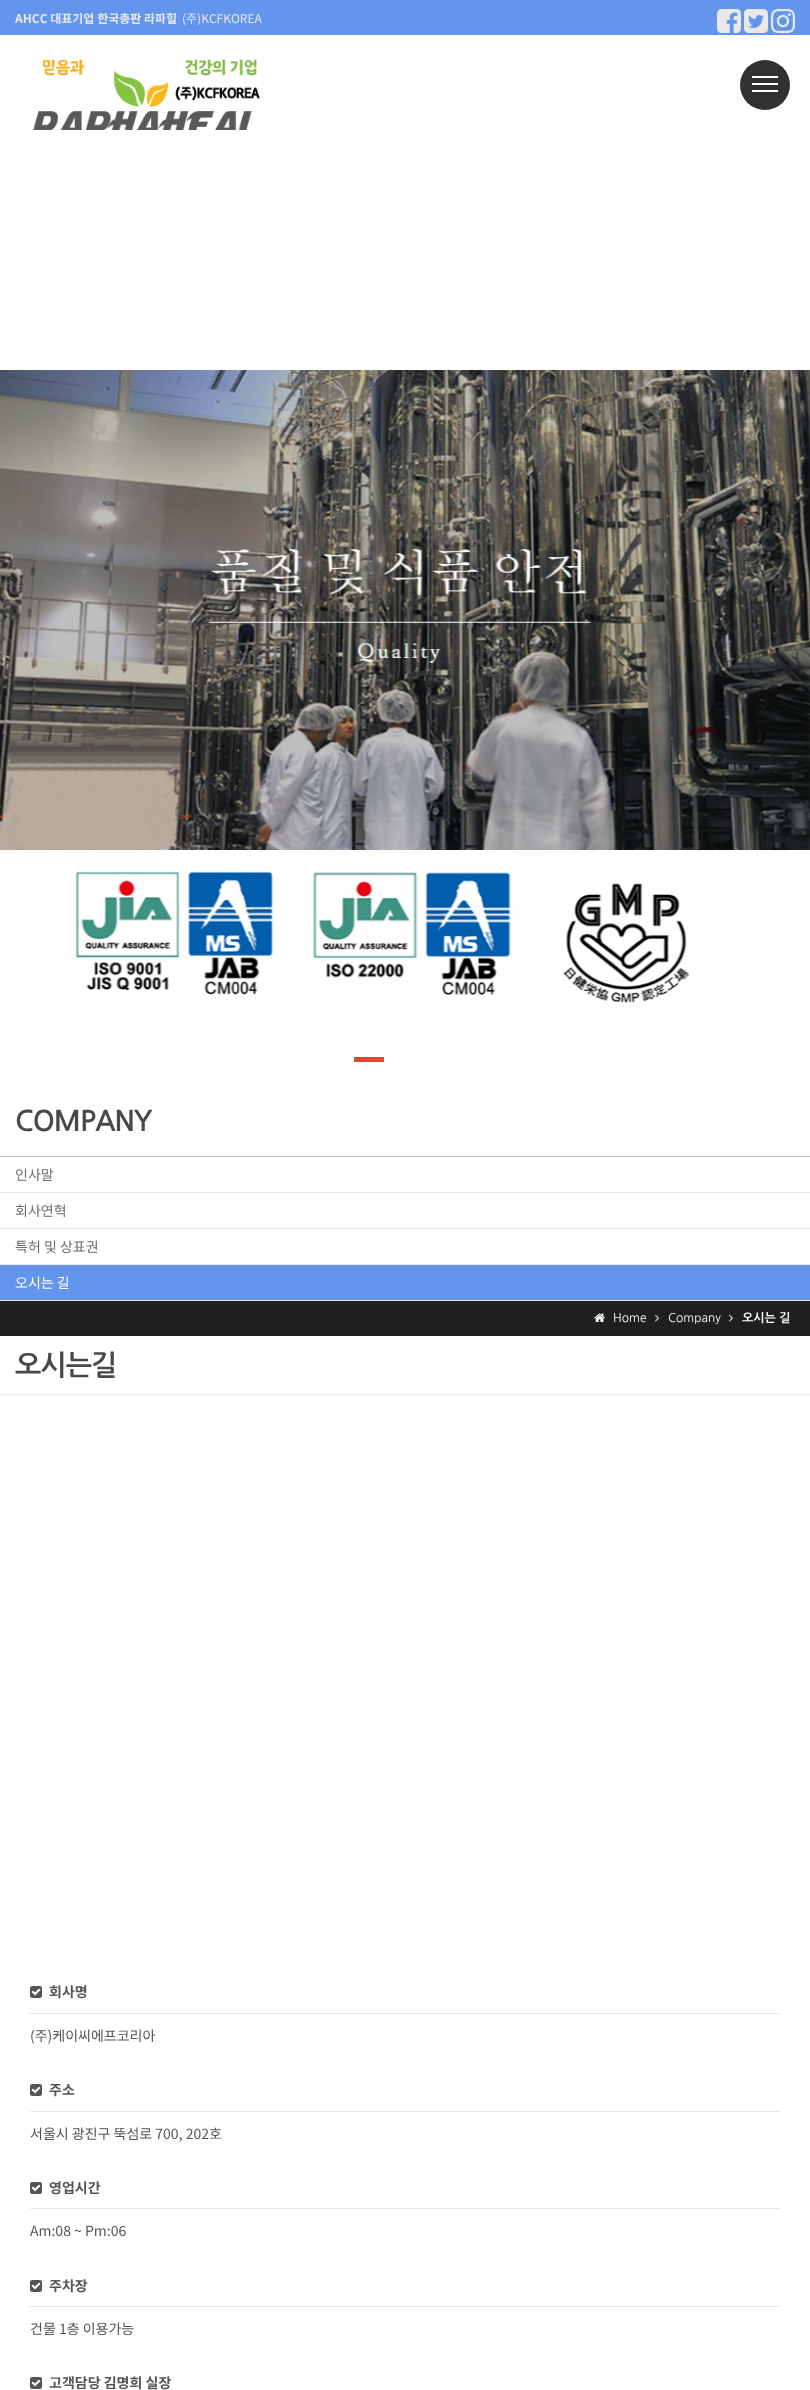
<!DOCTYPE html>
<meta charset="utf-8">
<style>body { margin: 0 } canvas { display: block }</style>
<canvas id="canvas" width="810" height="2390"></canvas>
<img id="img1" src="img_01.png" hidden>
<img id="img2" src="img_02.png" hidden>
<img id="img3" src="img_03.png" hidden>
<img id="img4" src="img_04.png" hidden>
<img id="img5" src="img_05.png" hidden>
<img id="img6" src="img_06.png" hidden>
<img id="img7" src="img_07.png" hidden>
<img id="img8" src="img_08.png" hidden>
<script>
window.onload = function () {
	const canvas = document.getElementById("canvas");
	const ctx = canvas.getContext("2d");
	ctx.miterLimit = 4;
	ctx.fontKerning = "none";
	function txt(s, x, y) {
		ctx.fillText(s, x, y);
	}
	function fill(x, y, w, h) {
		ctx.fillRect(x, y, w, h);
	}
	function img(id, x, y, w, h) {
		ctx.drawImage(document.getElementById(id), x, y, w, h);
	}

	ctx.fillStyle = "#FFFFFF";
	fill(0, 0, 810, 2390);
	ctx.fillStyle = "#6495ED";
	fill(0, 0, 810, 35);
	img("img1", 717, 9, 24, 24);
	img("img2", 744, 9, 24, 24);
	img("img3", 771, 9, 24, 24);
	img("img4", 32, 59, 228, 71);
	ctx.fillStyle = "#313131";
	ctx.beginPath();
	ctx.arc(765, 85, 25, 0, Math.PI * 2);
	ctx.fill();
	ctx.fillStyle = "#FFFFFF";
	fill(752, 83, 26, 2);
	fill(752, 76, 26, 2);
	fill(752, 90, 26, 2);
	img("img5", 0, 130, 810, 956);
	ctx.fillStyle = "#F44336";
	fill(354, 1057, 30, 5);
	ctx.fillStyle = "#C0C0C0";
	fill(0, 1156, 810, 1);
	ctx.fillStyle = "#E8E8E8";
	fill(0, 1192, 810, 1);
	fill(0, 1228, 810, 1);
	fill(0, 1264, 810, 1);
	ctx.fillStyle = "#6495ED";
	fill(0, 1265, 810, 35);
	ctx.fillStyle = "#E8E8E8";
	fill(0, 1300, 810, 1);
	ctx.fillStyle = "#1F1F1F";
	fill(0, 1301, 810, 35);
	img("img6", 594, 1313, 11, 9);
	img("img7", 655, 1314, 4, 8);
	img("img7", 729, 1314, 4, 8);
	ctx.fillStyle = "#ECECEC";
	fill(0, 1394, 810, 1);
	ctx.fillStyle = "#E6E6E6";
	fill(30, 2013, 750, 1);
	img("img8", 30, 1986, 12, 12);
	fill(30, 2111, 750, 1);
	img("img8", 30, 2084, 12, 12);
	fill(30, 2208, 750, 1);
	img("img8", 30, 2182, 12, 12);
	fill(30, 2306, 750, 1);
	img("img8", 30, 2280, 12, 12);
	img("img8", 30, 2377, 12, 12);
	ctx.font = "bold 12px Noto Sans KR";
	ctx.fillStyle = "#E8E8E8";
	txt("AHCC 대표기업 한국총판 라파힐", 15, 23);
	ctx.font = "12px Noto Sans KR";
	txt("(주)KCFKOREA", 182, 23);
	ctx.letterSpacing = "-1px";
	ctx.font = "bold 28px NanumGothic";
	ctx.fillStyle = "#494949";
	txt("COMPANY", 15, 1131);
	ctx.letterSpacing = "0px";
	ctx.font = "14px Noto Sans KR";
	ctx.fillStyle = "#6E6E6E";
	txt("인사말", 15, 1180);
	txt("회사연혁", 15, 1216);
	txt("특허 및 상표권", 15, 1252);
	ctx.fillStyle = "#FFFFFF";
	txt("오시는 길", 15, 1288);
	ctx.font = "12px NanumGothic";
	txt("Home", 613, 1322);
	txt("Company", 668, 1322);
	ctx.font = "bold 12px NanumGothic";
	txt("오시는 길", 742, 1322);
	ctx.letterSpacing = "-1px";
	ctx.font = "bold 28px NanumGothic";
	ctx.fillStyle = "#494949";
	txt("오시는길", 15, 1375);
	ctx.letterSpacing = "0px";
	ctx.font = "bold 14px Noto Sans KR";
	ctx.fillStyle = "#555555";
	txt("회사명", 49, 1997);
	ctx.font = "14px Noto Sans KR";
	txt("(주)케이씨에프코리아", 30, 2041);
	ctx.font = "bold 14px Noto Sans KR";
	txt("주소", 49, 2095);
	ctx.font = "14px Noto Sans KR";
	txt("서울시 광진구 뚝섬로 700, 202호", 30, 2139);
	ctx.font = "bold 14px Noto Sans KR";
	txt("영업시간", 49, 2193);
	ctx.font = "14px Noto Sans KR";
	txt("Am:08 ~ Pm:06", 30, 2236);
	ctx.font = "bold 14px Noto Sans KR";
	txt("주차장", 49, 2291);
	ctx.font = "14px Noto Sans KR";
	txt("건물 1층 이용가능", 30, 2334);
	ctx.font = "bold 14px Noto Sans KR";
	txt("고객담당 김명희 실장", 49, 2388);
};
</script>
